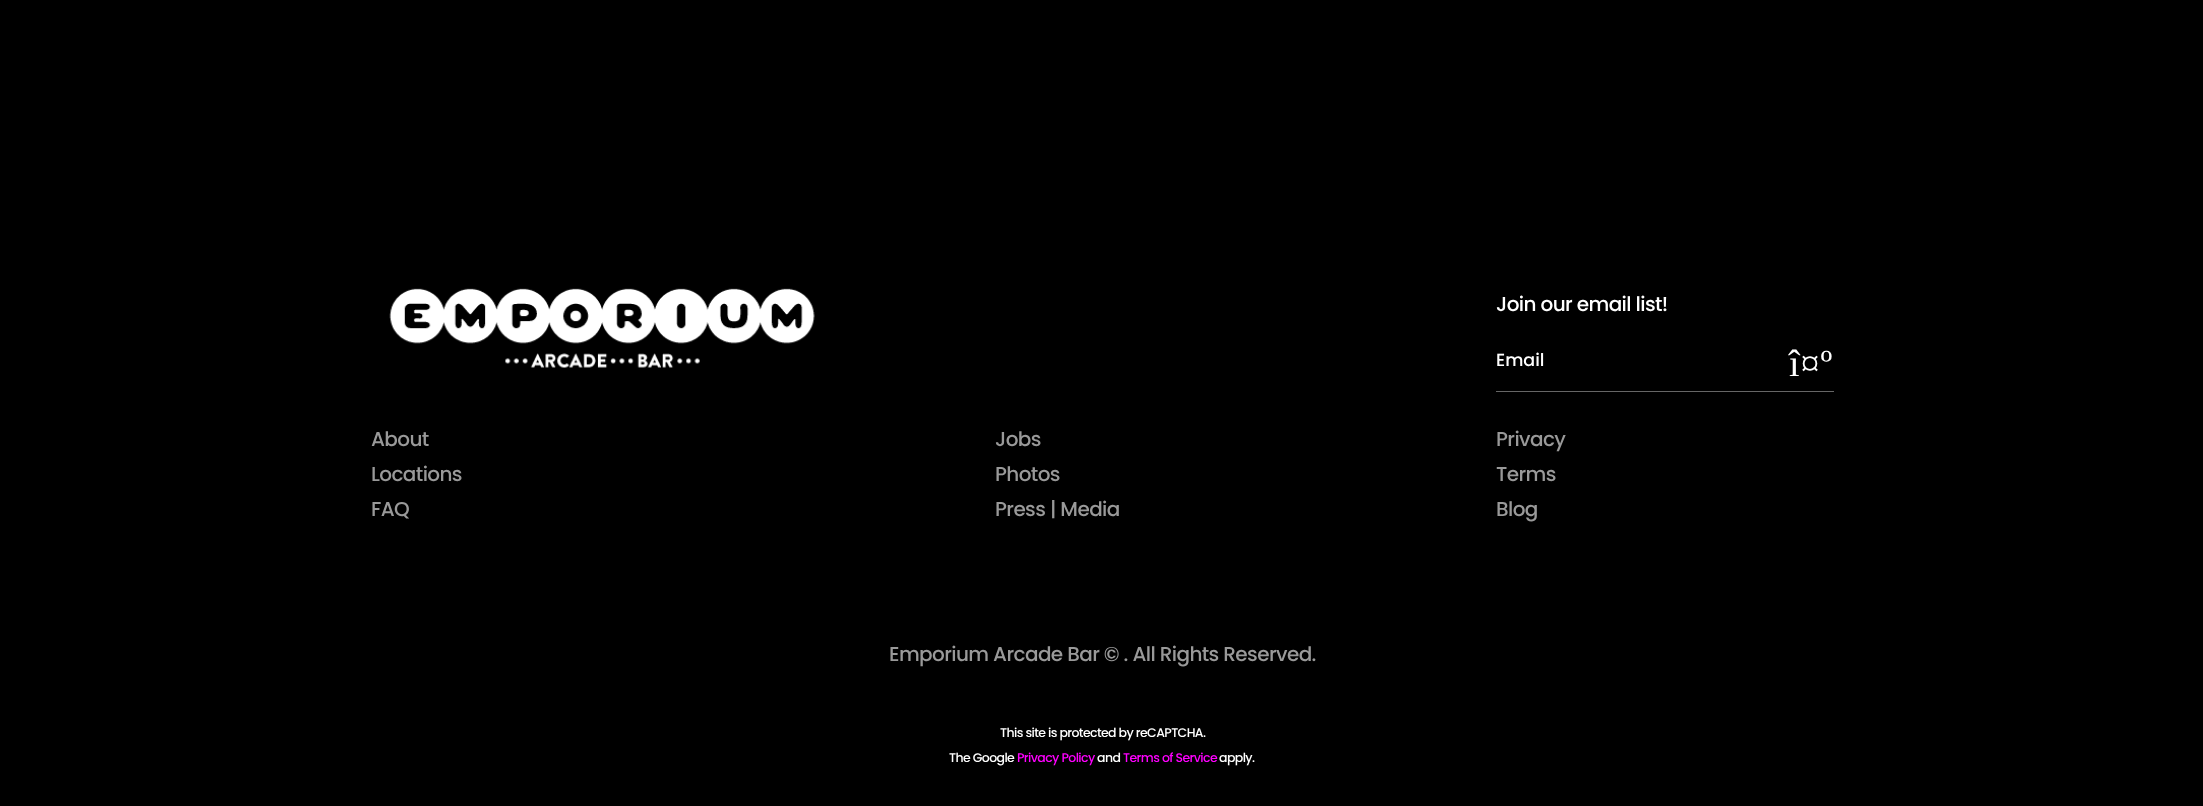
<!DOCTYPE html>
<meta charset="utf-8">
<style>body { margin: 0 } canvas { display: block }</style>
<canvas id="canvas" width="2203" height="806"></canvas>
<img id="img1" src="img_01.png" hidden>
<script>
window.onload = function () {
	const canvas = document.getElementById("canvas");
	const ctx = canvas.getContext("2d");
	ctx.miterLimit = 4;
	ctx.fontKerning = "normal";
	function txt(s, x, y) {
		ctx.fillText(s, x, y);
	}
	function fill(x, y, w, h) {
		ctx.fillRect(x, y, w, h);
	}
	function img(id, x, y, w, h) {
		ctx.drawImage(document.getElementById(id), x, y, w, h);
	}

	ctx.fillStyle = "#000000";
	fill(0, 0, 2203, 806);
	img("img1", 389, 288, 426, 80);
	ctx.fillStyle = "#666666";
	fill(1496, 391, 338, 1);
	ctx.letterSpacing = "-0.6px";
	ctx.font = "500 20px Poppins";
	ctx.fillStyle = "#FFFFFF";
	txt("Join our email list!", 1496, 311);
	ctx.letterSpacing = "0px";
	ctx.font = "500 17.5px Poppins";
	txt("Email", 1496, 366);
	ctx.letterSpacing = "1px";
	ctx.font = "38px Liberation Serif";
	txt("î¤º", 1789, 376);
	ctx.letterSpacing = "-0.6px";
	ctx.font = "500 20px Poppins";
	ctx.fillStyle = "#999999";
	txt("About", 371, 446);
	txt("Locations", 371, 481);
	txt("FAQ", 371, 516);
	txt("Jobs", 995, 446);
	txt("Photos", 995, 481);
	txt("Press | Media", 995, 516);
	txt("Privacy", 1496, 446);
	txt("Terms", 1496, 481);
	txt("Blog", 1496, 516);
	txt("Emporium Arcade Bar © . All Rights Reserved.", 889, 661);
	ctx.font = "500 12.5px Poppins";
	ctx.fillStyle = "#FFFFFF";
	txt("This site is protected by reCAPTCHA.", 1000, 737);
	txt("The Google", 949, 762);
	ctx.fillStyle = "#FF00FF";
	txt("Privacy Policy", 1017, 762);
	ctx.fillStyle = "#FFFFFF";
	txt("and", 1097, 762);
	ctx.fillStyle = "#FF00FF";
	txt("Terms of Service", 1123, 762);
	ctx.fillStyle = "#FFFFFF";
	txt("apply.", 1219, 762);
};
</script>
